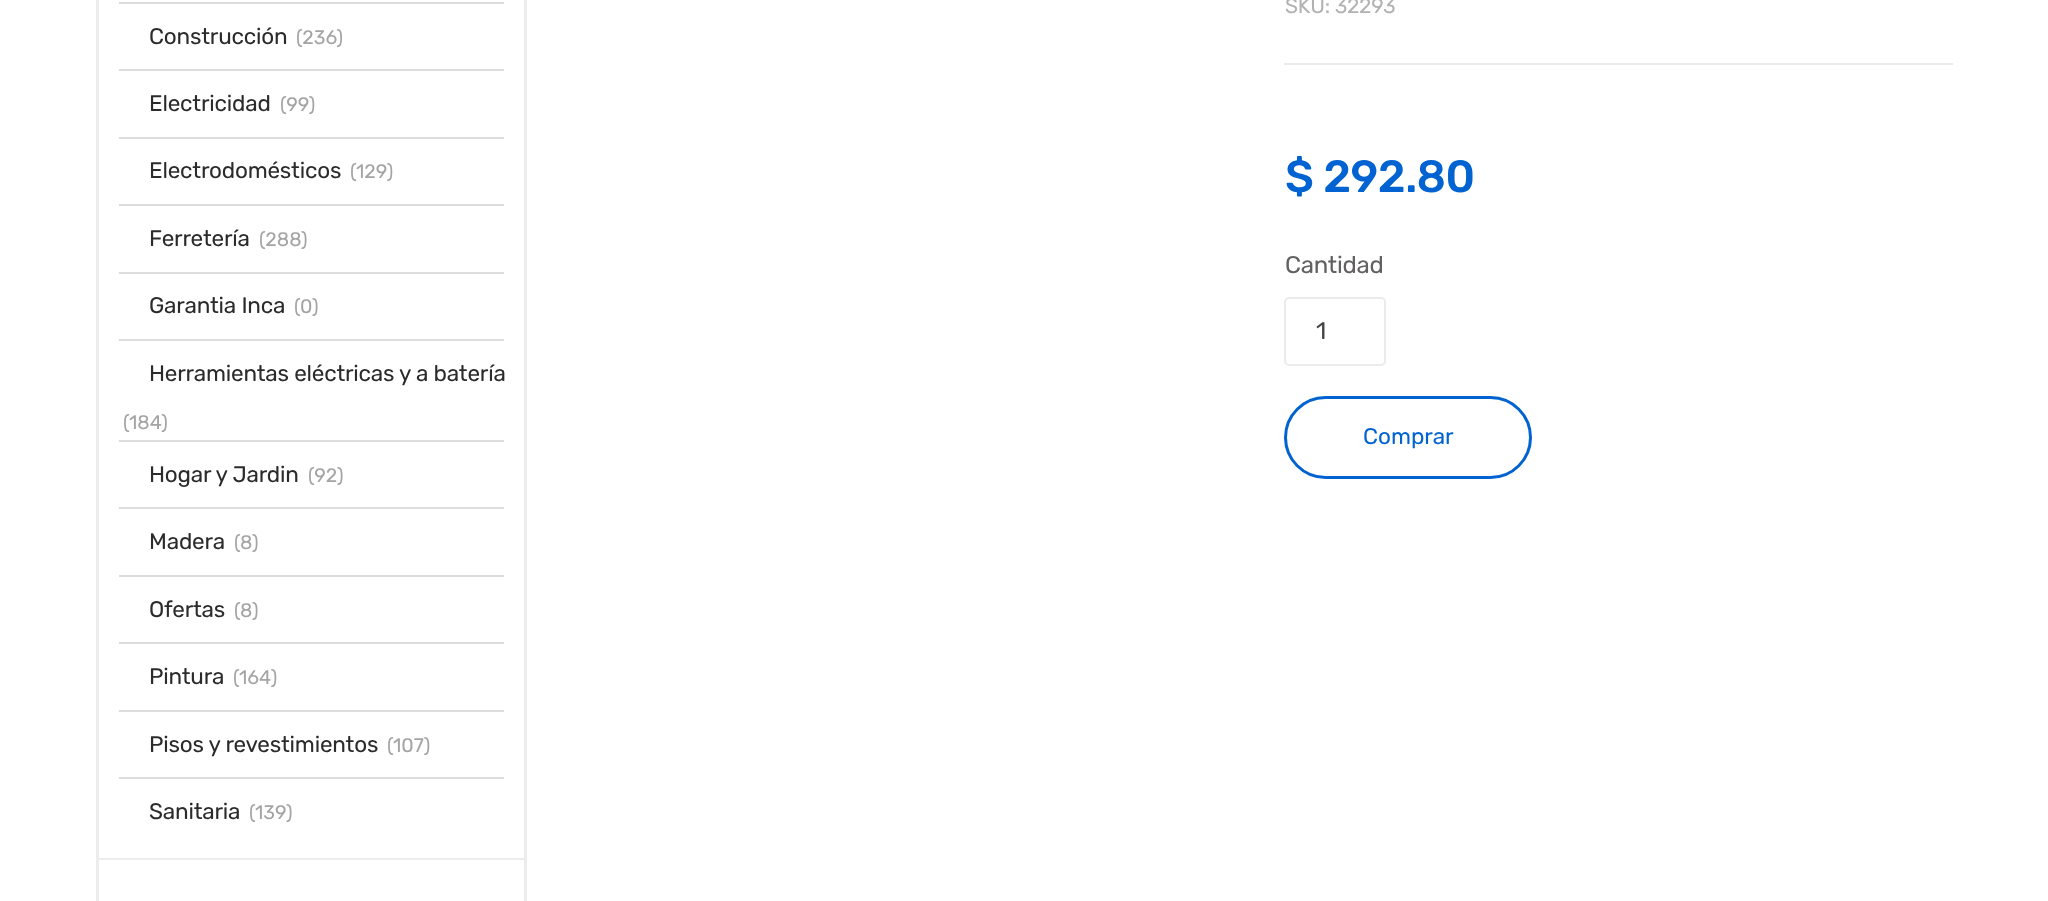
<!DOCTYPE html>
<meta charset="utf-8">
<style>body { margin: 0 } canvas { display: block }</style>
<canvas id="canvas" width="2048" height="901"></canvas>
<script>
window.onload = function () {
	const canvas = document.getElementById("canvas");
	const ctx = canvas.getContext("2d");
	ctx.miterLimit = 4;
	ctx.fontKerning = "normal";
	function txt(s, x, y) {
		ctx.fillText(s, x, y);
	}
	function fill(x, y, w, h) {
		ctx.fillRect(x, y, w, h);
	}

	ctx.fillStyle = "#FFFFFF";
	fill(0, 0, 2048, 901);
	ctx.strokeStyle = "#ECECEC";
	ctx.lineWidth = 3;
	ctx.strokeRect(97.5, -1.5, 428, 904);
	ctx.fillStyle = "#ECECEC";
	fill(99, 858, 425, 2);
	ctx.fillStyle = "#DDDDDD";
	fill(119, 2, 385, 2);
	fill(119, 69, 385, 2);
	fill(119, 137, 385, 2);
	fill(119, 204, 385, 2);
	fill(119, 272, 385, 2);
	fill(119, 339, 385, 2);
	fill(119, 440, 385, 2);
	fill(119, 507, 385, 2);
	fill(119, 575, 385, 2);
	fill(119, 642, 385, 2);
	fill(119, 710, 385, 2);
	fill(119, 777, 385, 2);
	ctx.fillStyle = "#EBEBEB";
	fill(1284, 63, 669, 2);
	ctx.beginPath();
	ctx.roundRect(1285, 298, 100, 67, 4);
	ctx.strokeStyle = "#EBEBEB";
	ctx.lineWidth = 2;
	ctx.stroke();
	ctx.beginPath();
	ctx.roundRect(1285.5, 397.5, 245, 80, 40);
	ctx.strokeStyle = "#0063D1";
	ctx.lineWidth = 3;
	ctx.stroke();
	ctx.letterSpacing = "-0.2px";
	ctx.font = "22.5px Rubik";
	ctx.fillStyle = "#2B2B2B";
	txt("Construcción", 149, 44);
	ctx.letterSpacing = "0px";
	ctx.font = "19.5px Rubik";
	ctx.fillStyle = "#A4A4A4";
	txt("(236)", 296, 44);
	ctx.letterSpacing = "-0.2px";
	ctx.font = "22.5px Rubik";
	ctx.fillStyle = "#2B2B2B";
	txt("Electricidad", 149, 111);
	ctx.letterSpacing = "0px";
	ctx.font = "19.5px Rubik";
	ctx.fillStyle = "#A4A4A4";
	txt("(99)", 280, 111);
	ctx.letterSpacing = "-0.2px";
	ctx.font = "22.5px Rubik";
	ctx.fillStyle = "#2B2B2B";
	txt("Electrodomésticos", 149, 178);
	ctx.letterSpacing = "0px";
	ctx.font = "19.5px Rubik";
	ctx.fillStyle = "#A4A4A4";
	txt("(129)", 350, 178);
	ctx.letterSpacing = "-0.2px";
	ctx.font = "22.5px Rubik";
	ctx.fillStyle = "#2B2B2B";
	txt("Ferretería", 149, 246);
	ctx.letterSpacing = "0px";
	ctx.font = "19.5px Rubik";
	ctx.fillStyle = "#A4A4A4";
	txt("(288)", 259, 246);
	ctx.letterSpacing = "-0.2px";
	ctx.font = "22.5px Rubik";
	ctx.fillStyle = "#2B2B2B";
	txt("Garantia Inca", 149, 313);
	ctx.letterSpacing = "0px";
	ctx.font = "19.5px Rubik";
	ctx.fillStyle = "#A4A4A4";
	txt("(0)", 294, 313);
	ctx.letterSpacing = "-0.2px";
	ctx.font = "22.5px Rubik";
	ctx.fillStyle = "#2B2B2B";
	txt("Herramientas eléctricas y a batería", 149, 381);
	ctx.letterSpacing = "0px";
	ctx.font = "19.5px Rubik";
	ctx.fillStyle = "#A4A4A4";
	txt("(184)", 123, 429);
	ctx.letterSpacing = "-0.2px";
	ctx.font = "22.5px Rubik";
	ctx.fillStyle = "#2B2B2B";
	txt("Hogar y Jardin", 149, 482);
	ctx.letterSpacing = "0px";
	ctx.font = "19.5px Rubik";
	ctx.fillStyle = "#A4A4A4";
	txt("(92)", 308, 482);
	ctx.letterSpacing = "-0.2px";
	ctx.font = "22.5px Rubik";
	ctx.fillStyle = "#2B2B2B";
	txt("Madera", 149, 549);
	ctx.letterSpacing = "0px";
	ctx.font = "19.5px Rubik";
	ctx.fillStyle = "#A4A4A4";
	txt("(8)", 234, 549);
	ctx.letterSpacing = "-0.2px";
	ctx.font = "22.5px Rubik";
	ctx.fillStyle = "#2B2B2B";
	txt("Ofertas", 149, 617);
	ctx.letterSpacing = "0px";
	ctx.font = "19.5px Rubik";
	ctx.fillStyle = "#A4A4A4";
	txt("(8)", 234, 617);
	ctx.letterSpacing = "-0.2px";
	ctx.font = "22.5px Rubik";
	ctx.fillStyle = "#2B2B2B";
	txt("Pintura", 149, 684);
	ctx.letterSpacing = "0px";
	ctx.font = "19.5px Rubik";
	ctx.fillStyle = "#A4A4A4";
	txt("(164)", 233, 684);
	ctx.letterSpacing = "-0.2px";
	ctx.font = "22.5px Rubik";
	ctx.fillStyle = "#2B2B2B";
	txt("Pisos y revestimientos", 149, 752);
	ctx.letterSpacing = "0px";
	ctx.font = "19.5px Rubik";
	ctx.fillStyle = "#A4A4A4";
	txt("(107)", 387, 752);
	ctx.letterSpacing = "-0.2px";
	ctx.font = "22.5px Rubik";
	ctx.fillStyle = "#2B2B2B";
	txt("Sanitaria", 149, 819);
	ctx.letterSpacing = "0px";
	ctx.font = "19.5px Rubik";
	ctx.fillStyle = "#A4A4A4";
	txt("(139)", 249, 819);
	ctx.letterSpacing = "-0.25px";
	ctx.font = "21px Rubik";
	ctx.fillStyle = "#B3B2B2";
	txt("SKU: 32293", 1285, 13);
	ctx.letterSpacing = "-0.5px";
	ctx.font = "500 45px Rubik";
	ctx.fillStyle = "#0063D1";
	txt("$ 292.80", 1285, 192);
	ctx.letterSpacing = "-0.25px";
	ctx.font = "24px Rubik";
	ctx.fillStyle = "#626060";
	txt("Cantidad", 1285, 273);
	ctx.letterSpacing = "0px";
	ctx.fillStyle = "#444444";
	txt("1", 1316, 339);
	ctx.font = "22.5px Rubik";
	ctx.fillStyle = "#0063D1";
	txt("Comprar", 1363, 444);
};
</script>
